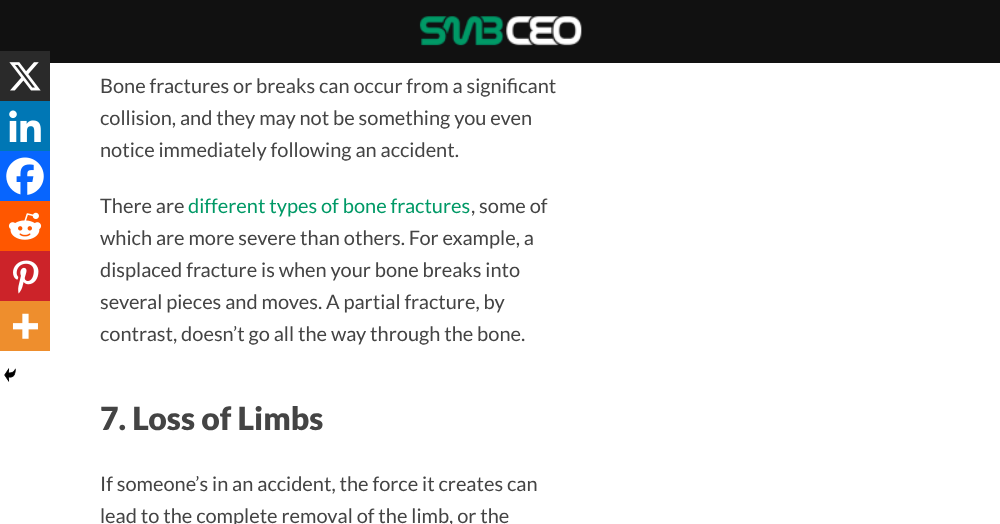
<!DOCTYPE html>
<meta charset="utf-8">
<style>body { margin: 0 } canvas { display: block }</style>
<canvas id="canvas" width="1000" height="524"></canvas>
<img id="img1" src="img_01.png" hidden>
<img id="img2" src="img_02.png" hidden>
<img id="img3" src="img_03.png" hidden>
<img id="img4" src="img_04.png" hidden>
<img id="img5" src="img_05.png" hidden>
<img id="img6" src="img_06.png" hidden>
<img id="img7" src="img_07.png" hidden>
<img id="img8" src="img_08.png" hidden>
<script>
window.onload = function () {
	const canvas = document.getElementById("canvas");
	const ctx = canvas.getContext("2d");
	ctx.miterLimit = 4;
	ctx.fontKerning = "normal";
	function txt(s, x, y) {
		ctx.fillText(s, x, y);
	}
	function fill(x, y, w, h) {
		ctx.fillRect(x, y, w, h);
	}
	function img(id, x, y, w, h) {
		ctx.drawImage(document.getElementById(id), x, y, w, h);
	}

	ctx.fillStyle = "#FFFFFF";
	fill(0, 0, 1000, 524);
	ctx.fillStyle = "#111111";
	fill(0, 0, 1000, 63);
	img("img1", 419, 16, 163, 30);
	ctx.fillStyle = "#2A2A2A";
	fill(0, 51, 50, 50);
	img("img2", 9, 62, 32, 29);
	ctx.fillStyle = "#0077B5";
	fill(0, 101, 50, 50);
	img("img3", 9, 110, 32, 32);
	ctx.fillStyle = "#0765FE";
	fill(0, 151, 50, 50);
	img("img4", 6, 157, 38, 38);
	ctx.fillStyle = "#FF5700";
	fill(0, 201, 50, 50);
	img("img5", 8, 212, 34, 28);
	ctx.fillStyle = "#CC2329";
	fill(0, 251, 50, 50);
	img("img6", 13, 260, 26, 34);
	ctx.fillStyle = "#EE8E2D";
	fill(0, 301, 50, 50);
	img("img7", 12, 313, 26, 26);
	img("img8", 4, 368, 12, 14);
	ctx.font = "20px Lato";
	ctx.fillStyle = "#444444";
	txt("Bone fractures or breaks can occur from a significant", 100, 93);
	txt("collision, and they may not be something you even", 100, 125);
	txt("notice immediately following an accident.", 100, 157);
	txt("There are", 100, 213);
	ctx.fillStyle = "#009966";
	txt("different types of bone fractures", 188, 213);
	ctx.fillStyle = "#444444";
	txt(", some of", 471, 213);
	txt("which are more severe than others. For example, a", 100, 245);
	txt("displaced fracture is when your bone breaks into", 100, 277);
	txt("several pieces and moves. A partial fracture, by", 100, 309);
	txt("contrast, doesn’t go all the way through the bone.", 100, 341);
	ctx.font = "900 32px Lato";
	txt("7. Loss of Limbs", 100, 430);
	ctx.font = "20px Lato";
	txt("If someone’s in an accident, the force it creates can", 100, 491);
	txt("lead to the complete removal of the limb, or the", 100, 523);
};
</script>
